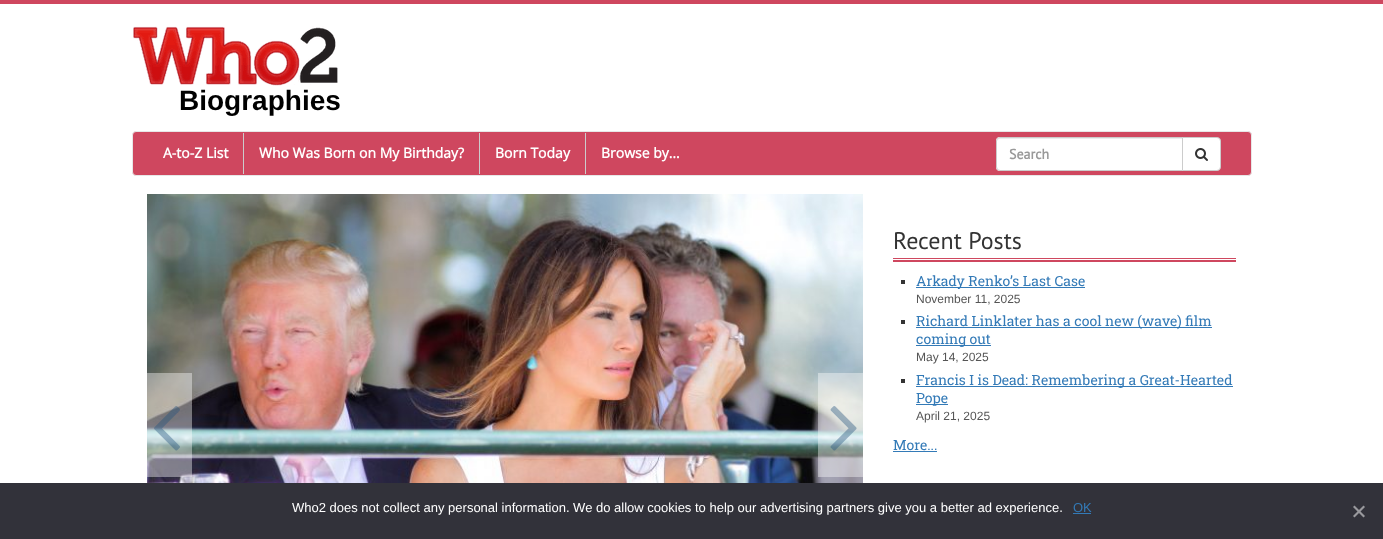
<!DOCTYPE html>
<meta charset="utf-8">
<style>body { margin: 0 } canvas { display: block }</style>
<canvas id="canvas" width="1383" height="539"></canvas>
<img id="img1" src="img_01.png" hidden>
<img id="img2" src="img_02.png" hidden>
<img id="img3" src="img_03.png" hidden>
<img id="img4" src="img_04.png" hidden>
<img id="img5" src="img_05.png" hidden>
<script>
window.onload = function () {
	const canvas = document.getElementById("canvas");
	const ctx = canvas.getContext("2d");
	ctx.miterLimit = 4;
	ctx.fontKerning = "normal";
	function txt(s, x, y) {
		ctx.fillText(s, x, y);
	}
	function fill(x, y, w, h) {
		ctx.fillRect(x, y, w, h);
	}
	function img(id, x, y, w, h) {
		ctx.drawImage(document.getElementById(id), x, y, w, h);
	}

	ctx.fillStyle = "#FFFFFF";
	fill(0, 0, 1383, 539);
	ctx.fillStyle = "#CF475F";
	fill(0, 0, 1383, 4);
	img("img1", 133, 26, 205, 60);
	ctx.beginPath();
	ctx.roundRect(132.5, 131.5, 1119, 44, 3.5);
	ctx.fill();
	ctx.strokeStyle = "#E7E7E7";
	ctx.stroke();
	ctx.fillStyle = "#CCCCCC";
	fill(243, 133, 1, 41);
	fill(479, 133, 1, 41);
	fill(585, 133, 1, 41);
	ctx.fillStyle = "#FFFFFF";
	ctx.beginPath();
	ctx.roundRect(996, 137, 187, 34, [4, 0, 0, 4]);
	ctx.fill();
	ctx.fillStyle = "#ECECEC";
	ctx.beginPath();
	ctx.moveTo(1000, 139);
	ctx.lineTo(1182, 139);
	ctx.lineTo(1182, 138);
	ctx.lineTo(1000, 138);
	ctx.bezierCurveTo(998, 138, 997, 140, 997, 142);
	ctx.bezierCurveTo(997, 140, 998, 139, 1000, 139);
	ctx.closePath();
	ctx.fill();
	ctx.beginPath();
	ctx.roundRect(996.5, 137.5, 186, 33, [3.5, 0, 0, 3.5]);
	ctx.strokeStyle = "#CCCCCC";
	ctx.stroke();
	ctx.fillStyle = "#FFFFFF";
	ctx.beginPath();
	ctx.roundRect(1182.5, 137.5, 38, 33, [0, 3.5, 3.5, 0]);
	ctx.fill();
	ctx.stroke();
	img("img2", 1195, 148, 13, 13);
	img("img3", 147, 194, 716, 289);
	ctx.fillStyle = "rgba(255, 255, 255, 0.4)";
	fill(147, 373, 45, 104);
	img("img4", 154, 406, 26, 45);
	fill(818, 373, 45, 104);
	img("img5", 830, 406, 27, 45);
	ctx.fillStyle = "#CF475F";
	fill(893, 258, 343, 1);
	fill(893, 260, 343, 2);
	ctx.fillStyle = "#333333";
	fill(901, 280, 4, 4);
	ctx.fillStyle = "#337AB7";
	fill(916, 287, 169, 1);
	ctx.fillStyle = "#333333";
	fill(901, 320, 4, 4);
	ctx.fillStyle = "#337AB7";
	fill(916, 327, 296, 1);
	fill(916, 345, 75, 1);
	ctx.fillStyle = "#333333";
	fill(901, 379, 4, 4);
	ctx.fillStyle = "#337AB7";
	fill(916, 386, 317, 1);
	fill(916, 404, 32, 1);
	fill(893, 451, 44, 1);
	ctx.fillStyle = "#32323A";
	fill(0, 483, 1383, 56);
	ctx.fillStyle = "#337AB7";
	fill(1073, 513, 18, 1);
	ctx.fillStyle = "#99999D";
	ctx.beginPath();
	ctx.moveTo(1363.5, 505.5);
	ctx.lineTo(1365, 507);
	ctx.lineTo(1354.5, 517.5);
	ctx.lineTo(1353, 516);
	ctx.closePath();
	ctx.fill();
	ctx.beginPath();
	ctx.moveTo(1353, 507);
	ctx.lineTo(1354.5, 505.5);
	ctx.lineTo(1365, 516);
	ctx.lineTo(1363.5, 517.5);
	ctx.closePath();
	ctx.fill();
	ctx.font = "bold 28px Liberation Sans";
	ctx.fillStyle = "#000000";
	txt("Biographies", 179, 110);
	ctx.font = "bold 14px Open Sans";
	ctx.fillStyle = "#FFFFFF";
	txt("A-to-Z List", 163, 158);
	txt("Who Was Born on My Birthday?", 259, 158);
	txt("Born Today", 495, 158);
	txt("Browse by…", 601, 158);
	ctx.font = "bold 14px PT Sans";
	ctx.fillStyle = "#999999";
	txt("Search", 1009, 159);
	ctx.font = "24px PT Sans";
	ctx.fillStyle = "#333333";
	txt("Recent Posts", 893, 249);
	ctx.font = "14px Roboto Slab";
	ctx.fillStyle = "#337AB7";
	txt("Arkady Renko’s Last Case", 916, 286);
	ctx.font = "12px Liberation Sans";
	ctx.fillStyle = "#555555";
	txt("November 11, 2025", 916, 303);
	ctx.font = "14px Roboto Slab";
	ctx.fillStyle = "#337AB7";
	txt("Richard Linklater has a cool new (wave) film", 916, 326);
	txt("coming out", 916, 344);
	ctx.font = "12px Liberation Sans";
	ctx.fillStyle = "#555555";
	txt("May 14, 2025", 916, 361);
	ctx.font = "14px Roboto Slab";
	ctx.fillStyle = "#337AB7";
	txt("Francis I is Dead: Remembering a Great-Hearted", 916, 385);
	txt("Pope", 916, 403);
	ctx.font = "12px Liberation Sans";
	ctx.fillStyle = "#555555";
	txt("April 21, 2025", 916, 420);
	ctx.font = "14px Roboto Slab";
	ctx.fillStyle = "#337AB7";
	txt("More...", 893, 450);
	ctx.font = "13px Liberation Sans";
	ctx.fillStyle = "#FFFFFF";
	txt("Who2 does not collect any personal information. We do allow cookies to help our advertising partners give you a better ad experience.", 292, 512);
	ctx.fillStyle = "#337AB7";
	txt("OK", 1073, 512);
};
</script>
